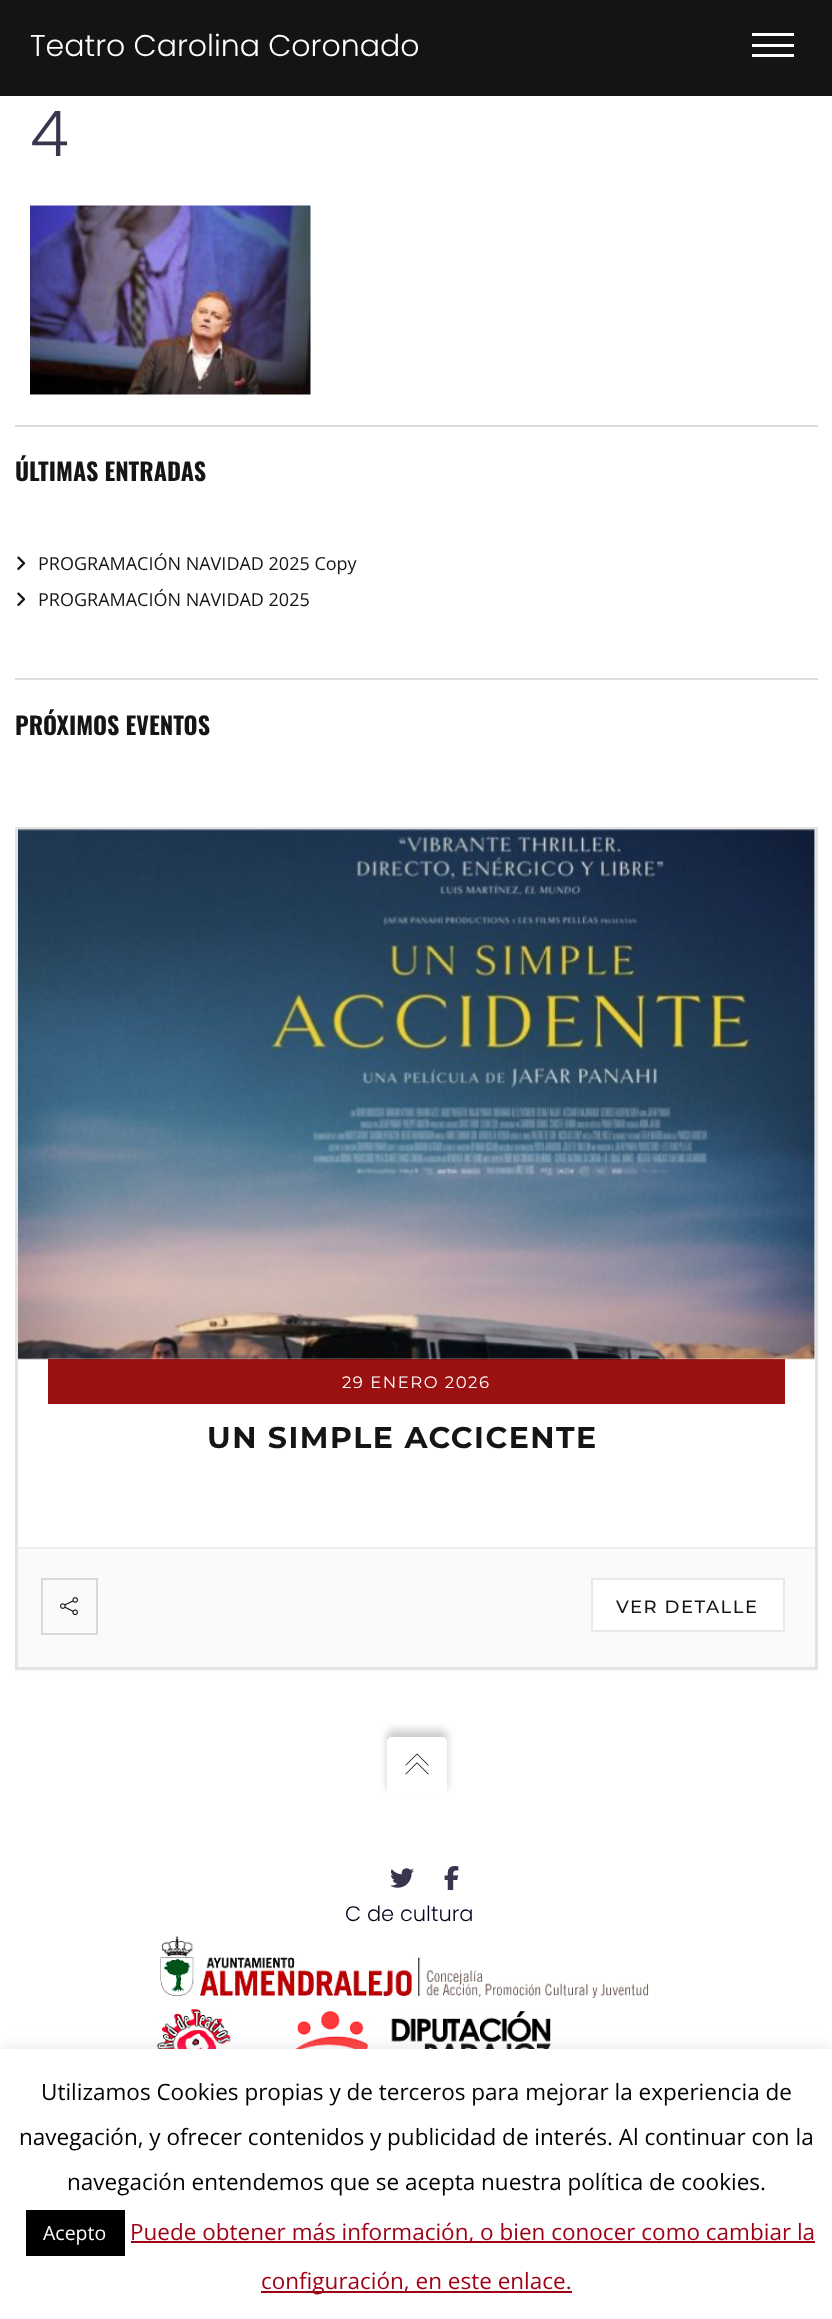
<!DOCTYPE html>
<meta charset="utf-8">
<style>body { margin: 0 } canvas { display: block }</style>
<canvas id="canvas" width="832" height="2319"></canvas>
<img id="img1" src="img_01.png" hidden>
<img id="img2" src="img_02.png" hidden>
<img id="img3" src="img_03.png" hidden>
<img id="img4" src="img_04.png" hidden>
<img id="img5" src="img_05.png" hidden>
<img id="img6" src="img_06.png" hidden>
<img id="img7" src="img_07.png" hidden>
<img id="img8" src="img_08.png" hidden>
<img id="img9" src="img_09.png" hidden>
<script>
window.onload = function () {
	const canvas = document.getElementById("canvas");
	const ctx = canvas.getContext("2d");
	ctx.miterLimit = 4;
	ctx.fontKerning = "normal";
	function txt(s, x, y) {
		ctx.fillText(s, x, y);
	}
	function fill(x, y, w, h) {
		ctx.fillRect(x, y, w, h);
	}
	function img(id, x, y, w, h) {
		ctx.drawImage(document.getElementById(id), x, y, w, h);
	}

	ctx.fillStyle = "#FFFFFF";
	fill(0, 0, 832, 2319);
	ctx.fillStyle = "#131416";
	fill(0, 0, 832, 96);
	ctx.fillStyle = "#FFFFFF";
	fill(752, 44, 42, 3);
	fill(752, 33, 42, 3);
	fill(752, 54, 42, 3);
	img("img1", 30, 205, 281, 190);
	ctx.fillStyle = "#DDDDDD";
	fill(15, 425, 803, 2);
	img("img2", 17, 556, 9, 14);
	img("img2", 17, 592, 9, 14);
	fill(15, 678, 803, 2);
	ctx.fillStyle = "#FBFBFB";
	ctx.beginPath();
	ctx.moveTo(15, 1670);
	ctx.lineTo(15, 1673);
	ctx.lineTo(818, 1673);
	ctx.lineTo(818, 830);
	ctx.lineTo(818, 1670);
	ctx.closePath();
	ctx.fill();
	ctx.strokeStyle = "#E3E3E3";
	ctx.lineWidth = 3;
	ctx.strokeRect(16.5, 828.5, 800, 840);
	ctx.fillStyle = "#9B1010";
	fill(48, 1359, 737, 45);
	img("img3", 18, 829, 797, 531);
	ctx.fillStyle = "#FAFAFA";
	fill(18, 1549, 797, 118);
	ctx.fillStyle = "#EFEFEF";
	fill(18, 1547, 797, 2);
	ctx.strokeStyle = "#D9D9D9";
	ctx.lineWidth = 2;
	ctx.strokeRect(42, 1579, 55, 55);
	img("img4", 60, 1597, 18, 19);
	ctx.fillStyle = "#FFFFFF";
	ctx.beginPath();
	ctx.rect(592, 1579, 192, 52);
	ctx.fill();
	ctx.strokeStyle = "#E8E8E8";
	ctx.stroke();
	ctx.fillStyle = "rgba(0, 0, 0, 0.2)";
	ctx.filter = "blur(4px)";
	ctx.beginPath();
	ctx.roundRect(387, 1730, 60, 60, 5);
	ctx.fill();
	ctx.filter = "none";
	ctx.fillStyle = "#FFFFFF";
	ctx.beginPath();
	ctx.roundRect(387, 1737, 60, 60, [5, 5, 0, 0]);
	ctx.fill();
	img("img5", 405, 1753, 24, 22);
	img("img6", 390, 1868, 24, 20);
	img("img7", 444, 1866, 15, 24);
	img("img8", 160, 1936, 489, 62);
	img("img9", 157, 2009, 397, 40);
	ctx.fillStyle = "rgba(172, 171, 171, 0.3)";
	ctx.filter = "blur(7.5px)";
	ctx.beginPath();
	ctx.rect(0, 2048, 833, 270);
	ctx.fill();
	ctx.filter = "none";
	ctx.fillStyle = "#FFFFFF";
	fill(0, 2049, 832, 270);
	ctx.fillStyle = "#000000";
	fill(26, 2210, 99, 46);
	ctx.fillStyle = "#9E0014";
	fill(131, 2241, 684, 2);
	fill(261, 2291, 311, 2);
	ctx.font = "300 30px Poppins";
	ctx.fillStyle = "#FFFFFF";
	txt("Teatro Carolina Coronado", 30, 56);
	ctx.font = "300 63px Poppins";
	ctx.fillStyle = "#3A354C";
	txt("4", 30, 156);
	ctx.font = "bold 24px Oswald";
	ctx.fillStyle = "#151515";
	txt("ÚLTIMAS ENTRADAS", 15, 481);
	ctx.font = "18px Open Sans";
	txt("PROGRAMACIÓN NAVIDAD 2025 Copy", 38, 570);
	txt("PROGRAMACIÓN NAVIDAD 2025", 38, 606);
	ctx.font = "bold 24px Oswald";
	txt("PRÓXIMOS EVENTOS", 15, 735);
	ctx.letterSpacing = "1.5px";
	ctx.font = "16.5px Montserrat";
	ctx.fillStyle = "#FFFFFF";
	txt("29 ENERO 2026", 342, 1388);
	ctx.font = "bold 30px Montserrat";
	ctx.fillStyle = "#151515";
	txt("UN SIMPLE ACCICENTE", 207, 1448);
	ctx.font = "500 18px Montserrat";
	txt("VER DETALLE", 616, 1613);
	ctx.letterSpacing = "0px";
	ctx.font = "300 21px Poppins";
	ctx.fillStyle = "#09031F";
	txt("C de cultura", 345, 1921);
	ctx.font = "22.5px Open Sans";
	ctx.fillStyle = "#000000";
	txt("Utilizamos Cookies propias y de terceros para mejorar la experiencia de", 41, 2100);
	txt("navegación, y ofrecer contenidos y publicidad de interés. Al continuar con la", 19, 2145);
	txt("navegación entendemos que se acepta nuestra política de cookies.", 67, 2190);
	ctx.font = "19.5px Open Sans";
	ctx.fillStyle = "#FFFFFF";
	txt("Acepto", 43, 2240);
	ctx.font = "22.5px Open Sans";
	ctx.fillStyle = "#9E0014";
	txt("Puede obtener más información, o bien conocer como cambiar la", 130, 2240);
	txt("configuración, en este enlace.", 261, 2289);
};
</script>
